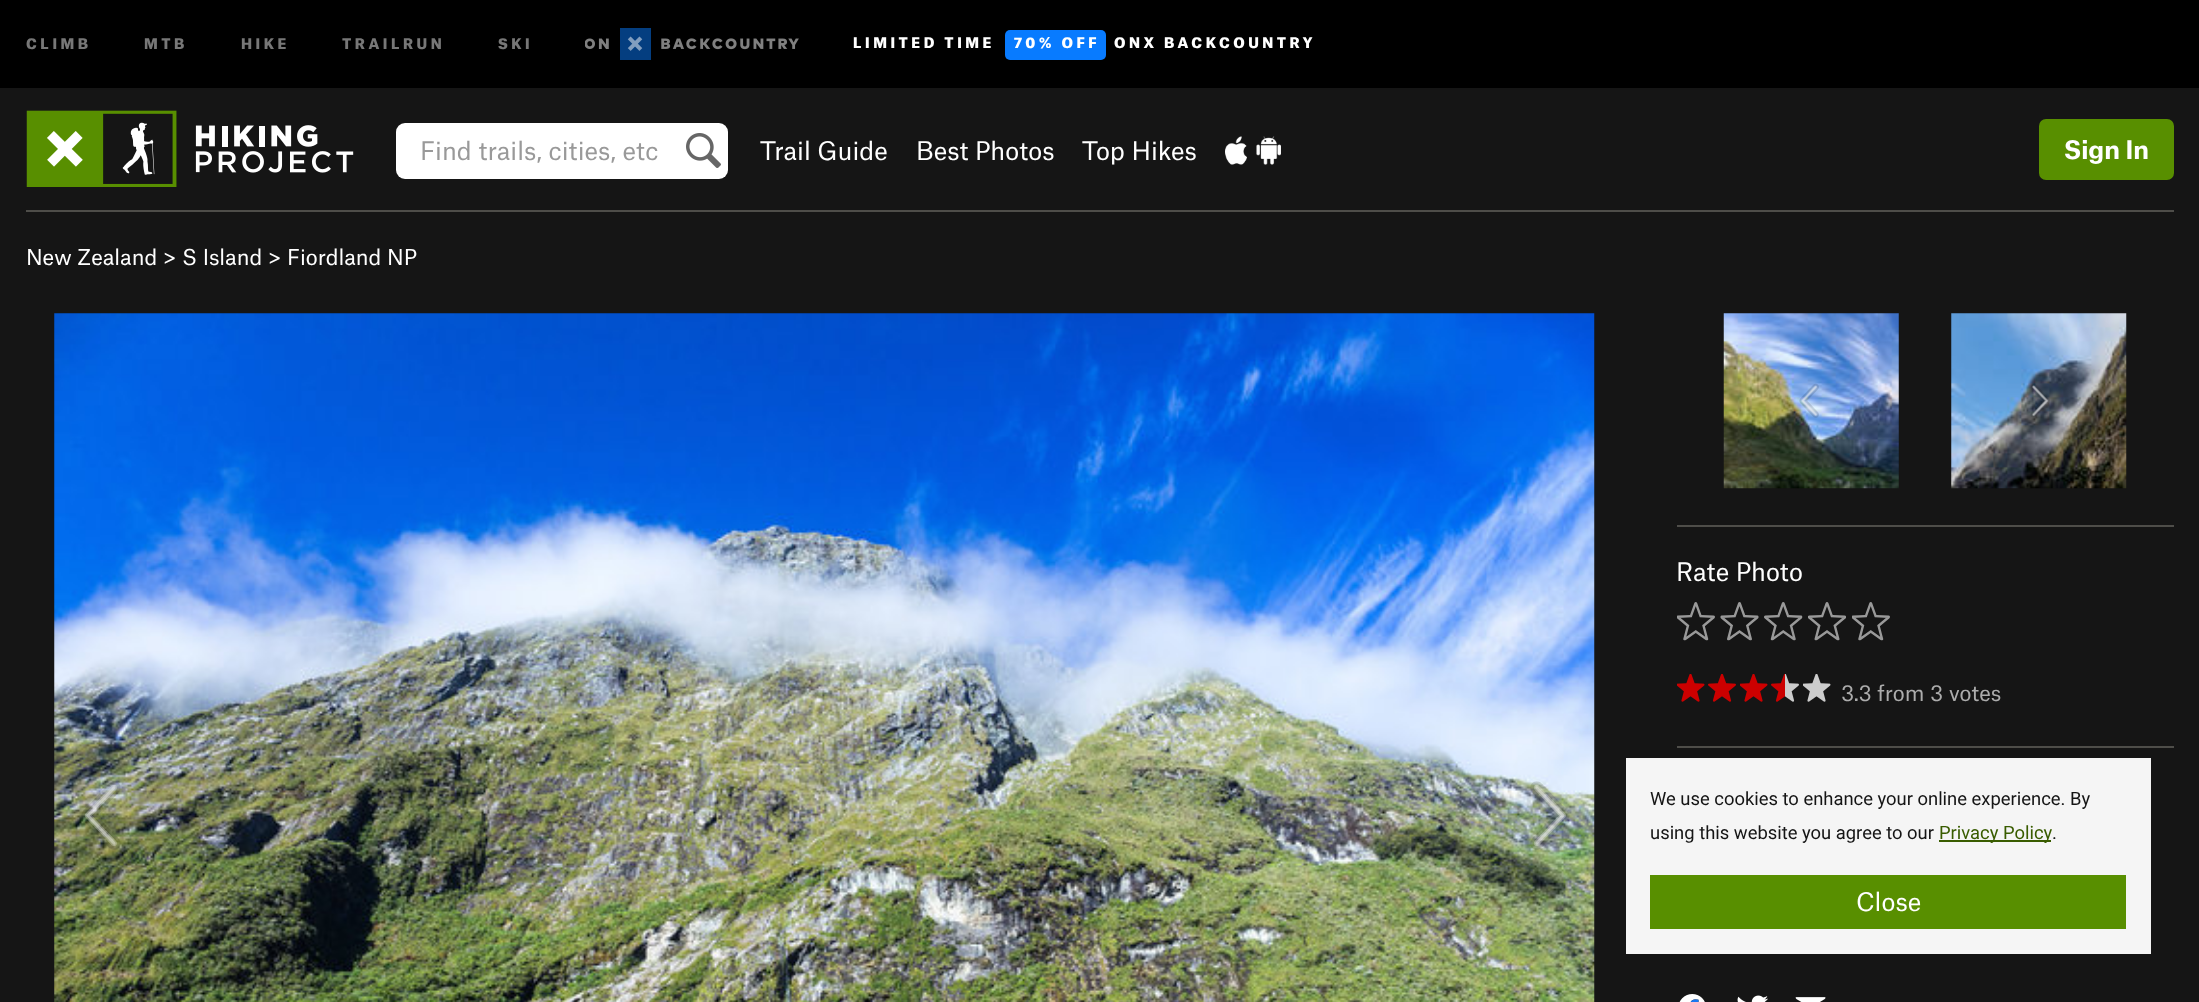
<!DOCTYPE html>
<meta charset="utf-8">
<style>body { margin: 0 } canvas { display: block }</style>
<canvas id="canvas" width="2199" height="1002"></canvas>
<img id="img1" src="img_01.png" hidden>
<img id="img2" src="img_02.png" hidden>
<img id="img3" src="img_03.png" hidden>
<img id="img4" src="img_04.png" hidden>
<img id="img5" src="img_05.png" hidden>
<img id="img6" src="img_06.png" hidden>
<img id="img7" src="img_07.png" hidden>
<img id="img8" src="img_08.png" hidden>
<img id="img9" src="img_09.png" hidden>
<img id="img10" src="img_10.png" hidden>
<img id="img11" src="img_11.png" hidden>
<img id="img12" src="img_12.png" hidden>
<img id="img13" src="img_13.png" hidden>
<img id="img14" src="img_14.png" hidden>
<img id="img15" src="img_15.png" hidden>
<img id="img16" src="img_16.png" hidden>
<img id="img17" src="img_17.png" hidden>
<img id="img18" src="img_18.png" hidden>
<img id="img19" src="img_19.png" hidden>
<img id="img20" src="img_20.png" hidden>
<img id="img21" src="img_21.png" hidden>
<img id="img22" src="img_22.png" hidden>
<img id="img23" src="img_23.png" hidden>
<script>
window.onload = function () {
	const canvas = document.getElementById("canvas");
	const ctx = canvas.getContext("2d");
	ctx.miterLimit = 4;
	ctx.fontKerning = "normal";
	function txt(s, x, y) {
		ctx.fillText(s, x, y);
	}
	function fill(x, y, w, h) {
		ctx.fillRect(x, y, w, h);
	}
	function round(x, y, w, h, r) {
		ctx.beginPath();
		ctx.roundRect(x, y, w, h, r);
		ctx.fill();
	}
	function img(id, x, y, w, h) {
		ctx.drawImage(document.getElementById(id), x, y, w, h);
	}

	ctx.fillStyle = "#151515";
	fill(0, 0, 2199, 1002);
	ctx.fillStyle = "#000000";
	fill(0, 0, 2199, 88);
	img("img1", 585, 28, 214, 32);
	ctx.fillStyle = "#087BFF";
	round(1005, 30, 101, 30, 5);
	img("img2", 26, 110, 328, 77);
	ctx.fillStyle = "#FFFFFF";
	round(396, 123, 332, 56, 9);
	img("img3", 686, 133, 35, 35);
	img("img4", 1225, 136, 22, 29);
	img("img5", 1256, 136, 25, 29);
	ctx.fillStyle = "#588F00";
	round(2039, 119, 135, 61, 7);
	ctx.fillStyle = "#4E4D49";
	fill(26, 210, 2148, 2);
	img("img6", 54, 313, 1541, 689);
	img("img7", 81, 781, 40, 69);
	img("img8", 1530, 781, 40, 69);
	img("img9", 1723, 313, 176, 176);
	img("img10", 1799, 383, 20, 35);
	img("img11", 1951, 313, 176, 176);
	img("img12", 2030, 384, 20, 34);
	fill(1677, 525, 497, 2);
	img("img13", 1677, 602, 38, 39);
	img("img14", 1720, 602, 39, 39);
	img("img15", 1764, 602, 39, 39);
	img("img16", 1808, 602, 38, 39);
	img("img13", 1852, 602, 38, 39);
	img("img17", 1677, 674, 28, 28);
	img("img18", 1708, 674, 28, 28);
	img("img17", 1740, 674, 28, 28);
	img("img19", 1771, 674, 28, 28);
	img("img20", 1803, 674, 28, 28);
	fill(1677, 746, 497, 2);
	img("img21", 1679, 994, 26, 8);
	img("img22", 1737, 995, 31, 7);
	img("img23", 1795, 997, 31, 5);
	ctx.fillStyle = "#F5F5F5";
	fill(1626, 758, 525, 196);
	ctx.fillStyle = "#395C00";
	fill(1939, 840, 112, 2);
	ctx.fillStyle = "#588F00";
	fill(1650, 875, 476, 54);
	ctx.letterSpacing = "3.5px";
	ctx.font = "900 14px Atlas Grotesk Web";
	ctx.fillStyle = "#777777";
	txt("CLIMB", 26, 49);
	txt("MTB", 144, 49);
	txt("HIKE", 241, 49);
	txt("TRAILRUN", 342, 49);
	txt("SKI", 498, 49);
	ctx.fillStyle = "#FFFFFF";
	txt("LIMITED TIME", 853, 48);
	txt("70% OFF", 1014, 48);
	txt("ONX BACKCOUNTRY", 1114, 48);
	ctx.letterSpacing = "0px";
	ctx.font = "24.5px Atlas Grotesk Web";
	ctx.fillStyle = "#999999";
	txt("Find trails, cities, etc", 420, 160);
	ctx.fillStyle = "#FFFFFF";
	txt("Trail Guide", 760, 160);
	txt("Best Photos", 916, 160);
	txt("Top Hikes", 1082, 160);
	ctx.font = "bold 24.5px Atlas Grotesk Web";
	txt("Sign In", 2064, 159);
	ctx.font = "21px Atlas Grotesk Web";
	txt("New Zealand > S Island > Fiordland NP", 26, 265);
	ctx.font = "24.5px Atlas Grotesk Web";
	txt("Rate Photo", 1676, 581);
	ctx.font = "21px Atlas Grotesk Web";
	ctx.fillStyle = "#ACACAC";
	txt("3.3 from 3 votes", 1841, 701);
	ctx.font = "18.4px Roboto";
	ctx.fillStyle = "#151515";
	txt("We use cookies to enhance your online experience. By", 1650, 805);
	txt("using this website you agree to our", 1650, 839);
	ctx.fillStyle = "#395C00";
	txt("Privacy Policy", 1939, 839);
	ctx.fillStyle = "#151515";
	txt(".", 2052, 839);
	ctx.font = "24.5px Atlas Grotesk Web";
	ctx.fillStyle = "#FFFFFF";
	txt("Close", 1856, 911);
};
</script>
